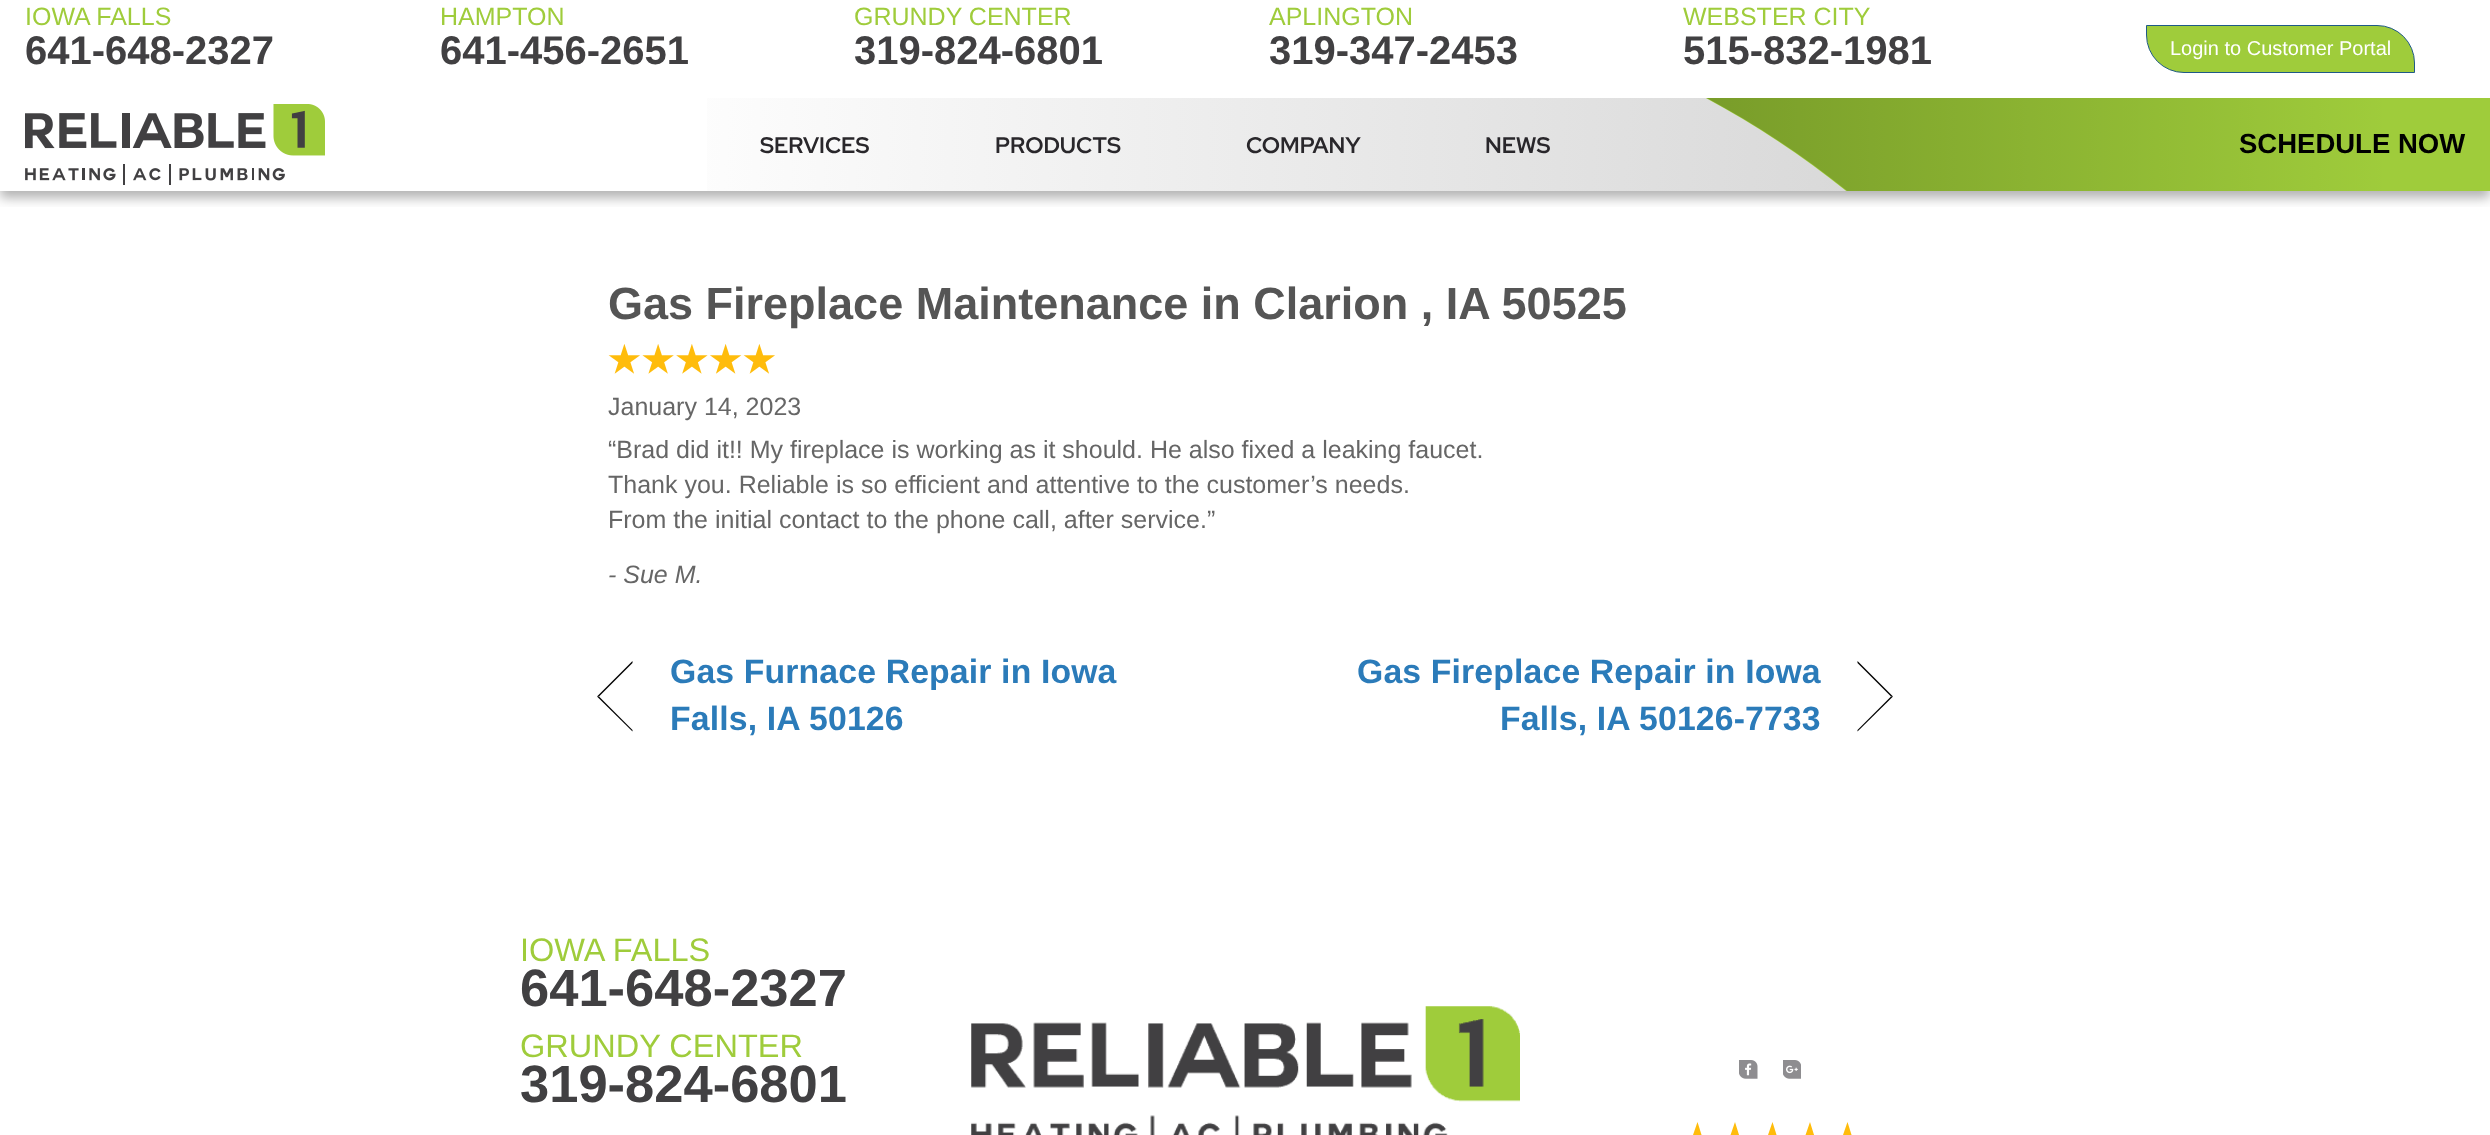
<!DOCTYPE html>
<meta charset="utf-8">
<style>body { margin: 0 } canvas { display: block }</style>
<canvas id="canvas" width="2490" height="1135"></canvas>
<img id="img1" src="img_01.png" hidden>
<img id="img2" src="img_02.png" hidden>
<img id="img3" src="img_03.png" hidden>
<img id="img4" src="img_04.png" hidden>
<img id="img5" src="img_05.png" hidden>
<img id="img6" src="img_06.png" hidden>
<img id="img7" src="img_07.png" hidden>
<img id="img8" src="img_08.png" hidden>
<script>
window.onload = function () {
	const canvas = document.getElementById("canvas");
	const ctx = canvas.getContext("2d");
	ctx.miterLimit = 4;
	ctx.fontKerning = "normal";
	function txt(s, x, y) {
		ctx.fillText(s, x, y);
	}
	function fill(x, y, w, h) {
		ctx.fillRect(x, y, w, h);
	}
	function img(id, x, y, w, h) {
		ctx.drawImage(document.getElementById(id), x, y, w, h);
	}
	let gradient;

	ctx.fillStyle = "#FFFFFF";
	fill(0, 0, 2490, 1135);
	ctx.save();
	ctx.beginPath();
	ctx.rect(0, 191, 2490, 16);
	ctx.clip();
	ctx.fillStyle = "rgba(0, 0, 0, 0.3)";
	ctx.filter = "blur(6px)";
	ctx.beginPath();
	ctx.rect(0, 6, 2490, 192);
	ctx.fill();
	ctx.filter = "none";
	ctx.restore();
	ctx.fillStyle = "#9FCC3B";
	ctx.beginPath();
	ctx.roundRect(2146.5, 25.5, 268, 47, [0, 37.5, 0, 37.5]);
	ctx.fill();
	ctx.strokeStyle = "#1F5A87";
	ctx.stroke();
	img("img1", 25, 104, 300, 81);
	gradient = ctx.createLinearGradient(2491, 161, 628, 128);
	gradient.addColorStop(0, "#C5C5C5");
	gradient.addColorStop(1, "#FFFFFF");
	ctx.fillStyle = gradient;
	fill(707, 98, 1140, 93);
	ctx.save();
	ctx.beginPath();
	ctx.rect(1670, 98, 820, 93);
	ctx.clip();
	ctx.fillStyle = "#9FCC3B";
	ctx.beginPath();
	ctx.moveTo(1064, -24);
	ctx.lineTo(1064, -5);
	ctx.lineTo(1297, -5);
	ctx.bezierCurveTo(1554, -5, 1780, 107, 1947, 284);
	ctx.bezierCurveTo(2088, 433, 2186, 628, 2226, 843);
	ctx.lineTo(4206, 843);
	ctx.lineTo(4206, -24);
	ctx.closePath();
	ctx.fill();
	gradient = ctx.createLinearGradient(2388, 369, 1481, 369);
	gradient.addColorStop(0, "rgba(32, 46, 0, 0)");
	gradient.addColorStop(1, "rgba(32, 46, 0, 0.4)");
	ctx.fillStyle = gradient;
	ctx.beginPath();
	ctx.moveTo(1278, -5);
	ctx.lineTo(1278, -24);
	ctx.lineTo(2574, -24);
	ctx.lineTo(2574, 843);
	ctx.lineTo(2226, 843);
	ctx.bezierCurveTo(2139, 372, 1770, -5, 1297, -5);
	ctx.closePath();
	ctx.fill();
	ctx.restore();
	img("img2", 608, 344, 32, 30);
	img("img3", 642, 344, 32, 30);
	img("img4", 676, 344, 32, 30);
	img("img5", 710, 344, 32, 30);
	img("img2", 743, 344, 32, 30);
	ctx.fillStyle = "#000000";
	ctx.beginPath();
	ctx.moveTo(632.5, 731.5);
	ctx.lineTo(597, 696.5);
	ctx.lineTo(599, 696.5);
	ctx.lineTo(632.5, 730);
	ctx.closePath();
	ctx.fill();
	ctx.beginPath();
	ctx.moveTo(597, 696.5);
	ctx.lineTo(632.5, 661);
	ctx.lineTo(632.5, 663);
	ctx.lineTo(599, 696.5);
	ctx.closePath();
	ctx.fill();
	ctx.beginPath();
	ctx.moveTo(1857.5, 661);
	ctx.lineTo(1893, 696.5);
	ctx.lineTo(1891, 696.5);
	ctx.lineTo(1857.5, 663);
	ctx.closePath();
	ctx.fill();
	ctx.beginPath();
	ctx.moveTo(1893, 696.5);
	ctx.lineTo(1857.5, 731.5);
	ctx.lineTo(1857.5, 730);
	ctx.lineTo(1891, 696.5);
	ctx.closePath();
	ctx.fill();
	img("img6", 971, 1006, 549, 129);
	img("img7", 1739, 1060, 19, 19);
	img("img8", 1783, 1060, 18, 19);
	ctx.fillStyle = "#F4F3F1";
	ctx.beginPath();
	ctx.moveTo(1697.5, 1122);
	ctx.lineTo(1702, 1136.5);
	ctx.lineTo(1697.5, 1122);
	ctx.lineTo(1702, 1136.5);
	ctx.lineTo(1717, 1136.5);
	ctx.lineTo(1705, 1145.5);
	ctx.lineTo(1709.5, 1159.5);
	ctx.lineTo(1697.5, 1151);
	ctx.lineTo(1685, 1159.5);
	ctx.lineTo(1690, 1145.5);
	ctx.lineTo(1677.5, 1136.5);
	ctx.lineTo(1692.5, 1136.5);
	ctx.closePath();
	ctx.fill();
	ctx.beginPath();
	ctx.moveTo(1772.5, 1122);
	ctx.lineTo(1777, 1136.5);
	ctx.lineTo(1772.5, 1122);
	ctx.lineTo(1777, 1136.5);
	ctx.lineTo(1792, 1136.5);
	ctx.lineTo(1780, 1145.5);
	ctx.lineTo(1784.5, 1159.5);
	ctx.lineTo(1772.5, 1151);
	ctx.lineTo(1760, 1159.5);
	ctx.lineTo(1765, 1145.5);
	ctx.lineTo(1752.5, 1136.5);
	ctx.lineTo(1767.5, 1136.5);
	ctx.closePath();
	ctx.fill();
	ctx.beginPath();
	ctx.moveTo(1847.5, 1122);
	ctx.lineTo(1852, 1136.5);
	ctx.lineTo(1847.5, 1122);
	ctx.lineTo(1852, 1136.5);
	ctx.lineTo(1867, 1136.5);
	ctx.lineTo(1855, 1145.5);
	ctx.lineTo(1859.5, 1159.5);
	ctx.lineTo(1847.5, 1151);
	ctx.lineTo(1835, 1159.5);
	ctx.lineTo(1840, 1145.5);
	ctx.lineTo(1827.5, 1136.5);
	ctx.lineTo(1842.5, 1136.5);
	ctx.closePath();
	ctx.fill();
	ctx.fillStyle = "#FFBC0B";
	ctx.beginPath();
	ctx.moveTo(1697.5, 1122);
	ctx.lineTo(1702, 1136.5);
	ctx.lineTo(1697.5, 1122);
	ctx.lineTo(1702, 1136.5);
	ctx.lineTo(1717, 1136.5);
	ctx.lineTo(1705, 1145.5);
	ctx.lineTo(1709.5, 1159.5);
	ctx.lineTo(1697.5, 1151);
	ctx.lineTo(1685, 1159.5);
	ctx.lineTo(1690, 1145.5);
	ctx.lineTo(1677.5, 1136.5);
	ctx.lineTo(1692.5, 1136.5);
	ctx.closePath();
	ctx.moveTo(1735, 1122);
	ctx.lineTo(1739.5, 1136.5);
	ctx.lineTo(1735, 1122);
	ctx.lineTo(1739.5, 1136.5);
	ctx.lineTo(1754.5, 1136.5);
	ctx.lineTo(1742.5, 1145.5);
	ctx.lineTo(1747, 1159.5);
	ctx.lineTo(1735, 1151);
	ctx.lineTo(1722.5, 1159.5);
	ctx.lineTo(1727.5, 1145.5);
	ctx.lineTo(1715, 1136.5);
	ctx.lineTo(1730, 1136.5);
	ctx.closePath();
	ctx.fill();
	ctx.beginPath();
	ctx.moveTo(1772.5, 1122);
	ctx.lineTo(1777, 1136.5);
	ctx.lineTo(1772.5, 1122);
	ctx.lineTo(1777, 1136.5);
	ctx.lineTo(1792, 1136.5);
	ctx.lineTo(1780, 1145.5);
	ctx.lineTo(1784.5, 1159.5);
	ctx.lineTo(1772.5, 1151);
	ctx.lineTo(1760, 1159.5);
	ctx.lineTo(1765, 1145.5);
	ctx.lineTo(1752.5, 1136.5);
	ctx.lineTo(1767.5, 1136.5);
	ctx.closePath();
	ctx.moveTo(1810, 1122);
	ctx.lineTo(1814.5, 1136.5);
	ctx.lineTo(1810, 1122);
	ctx.lineTo(1814.5, 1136.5);
	ctx.lineTo(1829.5, 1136.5);
	ctx.lineTo(1817.5, 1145.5);
	ctx.lineTo(1822, 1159.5);
	ctx.lineTo(1810, 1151);
	ctx.lineTo(1797.5, 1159.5);
	ctx.lineTo(1802.5, 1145.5);
	ctx.lineTo(1790, 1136.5);
	ctx.lineTo(1805, 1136.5);
	ctx.closePath();
	ctx.fill();
	ctx.beginPath();
	ctx.moveTo(1847.5, 1122);
	ctx.lineTo(1852, 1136.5);
	ctx.lineTo(1847.5, 1122);
	ctx.lineTo(1852, 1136.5);
	ctx.lineTo(1867, 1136.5);
	ctx.lineTo(1855, 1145.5);
	ctx.lineTo(1859.5, 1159.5);
	ctx.lineTo(1847.5, 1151);
	ctx.lineTo(1835, 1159.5);
	ctx.lineTo(1840, 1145.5);
	ctx.lineTo(1827.5, 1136.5);
	ctx.lineTo(1842.5, 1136.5);
	ctx.closePath();
	ctx.fill();
	ctx.font = "25px Liberation Sans";
	ctx.fillStyle = "#9FCC3B";
	txt("IOWA FALLS", 25, 25);
	ctx.font = "bold 40px Liberation Sans";
	ctx.fillStyle = "#414042";
	txt("641-648-2327", 25, 64);
	ctx.font = "25px Liberation Sans";
	ctx.fillStyle = "#9FCC3B";
	txt("HAMPTON", 440, 25);
	ctx.font = "bold 40px Liberation Sans";
	ctx.fillStyle = "#414042";
	txt("641-456-2651", 440, 64);
	ctx.font = "25px Liberation Sans";
	ctx.fillStyle = "#9FCC3B";
	txt("GRUNDY CENTER", 854, 25);
	ctx.font = "bold 40px Liberation Sans";
	ctx.fillStyle = "#414042";
	txt("319-824-6801", 854, 64);
	ctx.font = "25px Liberation Sans";
	ctx.fillStyle = "#9FCC3B";
	txt("APLINGTON", 1269, 25);
	ctx.font = "bold 40px Liberation Sans";
	ctx.fillStyle = "#414042";
	txt("319-347-2453", 1269, 64);
	ctx.font = "25px Liberation Sans";
	ctx.fillStyle = "#9FCC3B";
	txt("WEBSTER CITY", 1683, 25);
	ctx.font = "bold 40px Liberation Sans";
	ctx.fillStyle = "#414042";
	txt("515-832-1981", 1683, 64);
	ctx.font = "20px Liberation Sans";
	ctx.fillStyle = "#FFFFFF";
	txt("Login to Customer Portal", 2170, 55);
	ctx.font = "bold 22.5px Red Hat Display";
	ctx.fillStyle = "#29272B";
	txt("SERVICES", 760, 153);
	txt("PRODUCTS", 995, 153);
	txt("COMPANY", 1246, 153);
	txt("NEWS", 1485, 153);
	ctx.font = "bold 27.5px Liberation Sans";
	ctx.fillStyle = "#000000";
	txt("SCHEDULE NOW", 2239, 153);
	ctx.font = "bold 45px Liberation Sans";
	ctx.fillStyle = "#555555";
	txt("Gas Fireplace Maintenance in Clarion , IA 50525", 608, 319);
	ctx.font = "25px Liberation Sans";
	ctx.fillStyle = "#666666";
	txt("January 14, 2023", 608, 415);
	txt("“Brad did it!! My fireplace is working as it should. He also fixed a leaking faucet.", 608, 458);
	txt("Thank you. Reliable is so efficient and attentive to the customer’s needs.", 608, 493);
	txt("From the initial contact to the phone call, after service.”", 608, 528);
	ctx.font = "italic 25px Liberation Sans";
	txt("- Sue M.", 608, 583);
	ctx.letterSpacing = "0.15px";
	ctx.font = "bold 33.75px Liberation Sans";
	ctx.fillStyle = "#2B7BB9";
	txt("Gas Furnace Repair in Iowa", 670, 683);
	txt("Falls, IA 50126", 670, 730);
	txt("Gas Fireplace Repair in Iowa", 1357, 683);
	txt("Falls, IA 50126-7733", 1500, 730);
	ctx.letterSpacing = "0px";
	ctx.font = "32.5px Liberation Sans";
	ctx.fillStyle = "#9FCC3B";
	txt("IOWA FALLS", 520, 961);
	ctx.font = "bold 52.5px Liberation Sans";
	ctx.fillStyle = "#414042";
	txt("641-648-2327", 520, 1006);
	ctx.font = "32.5px Liberation Sans";
	ctx.fillStyle = "#9FCC3B";
	txt("GRUNDY CENTER", 520, 1057);
	ctx.font = "bold 52.5px Liberation Sans";
	ctx.fillStyle = "#414042";
	txt("319-824-6801", 520, 1102);
};
</script>
